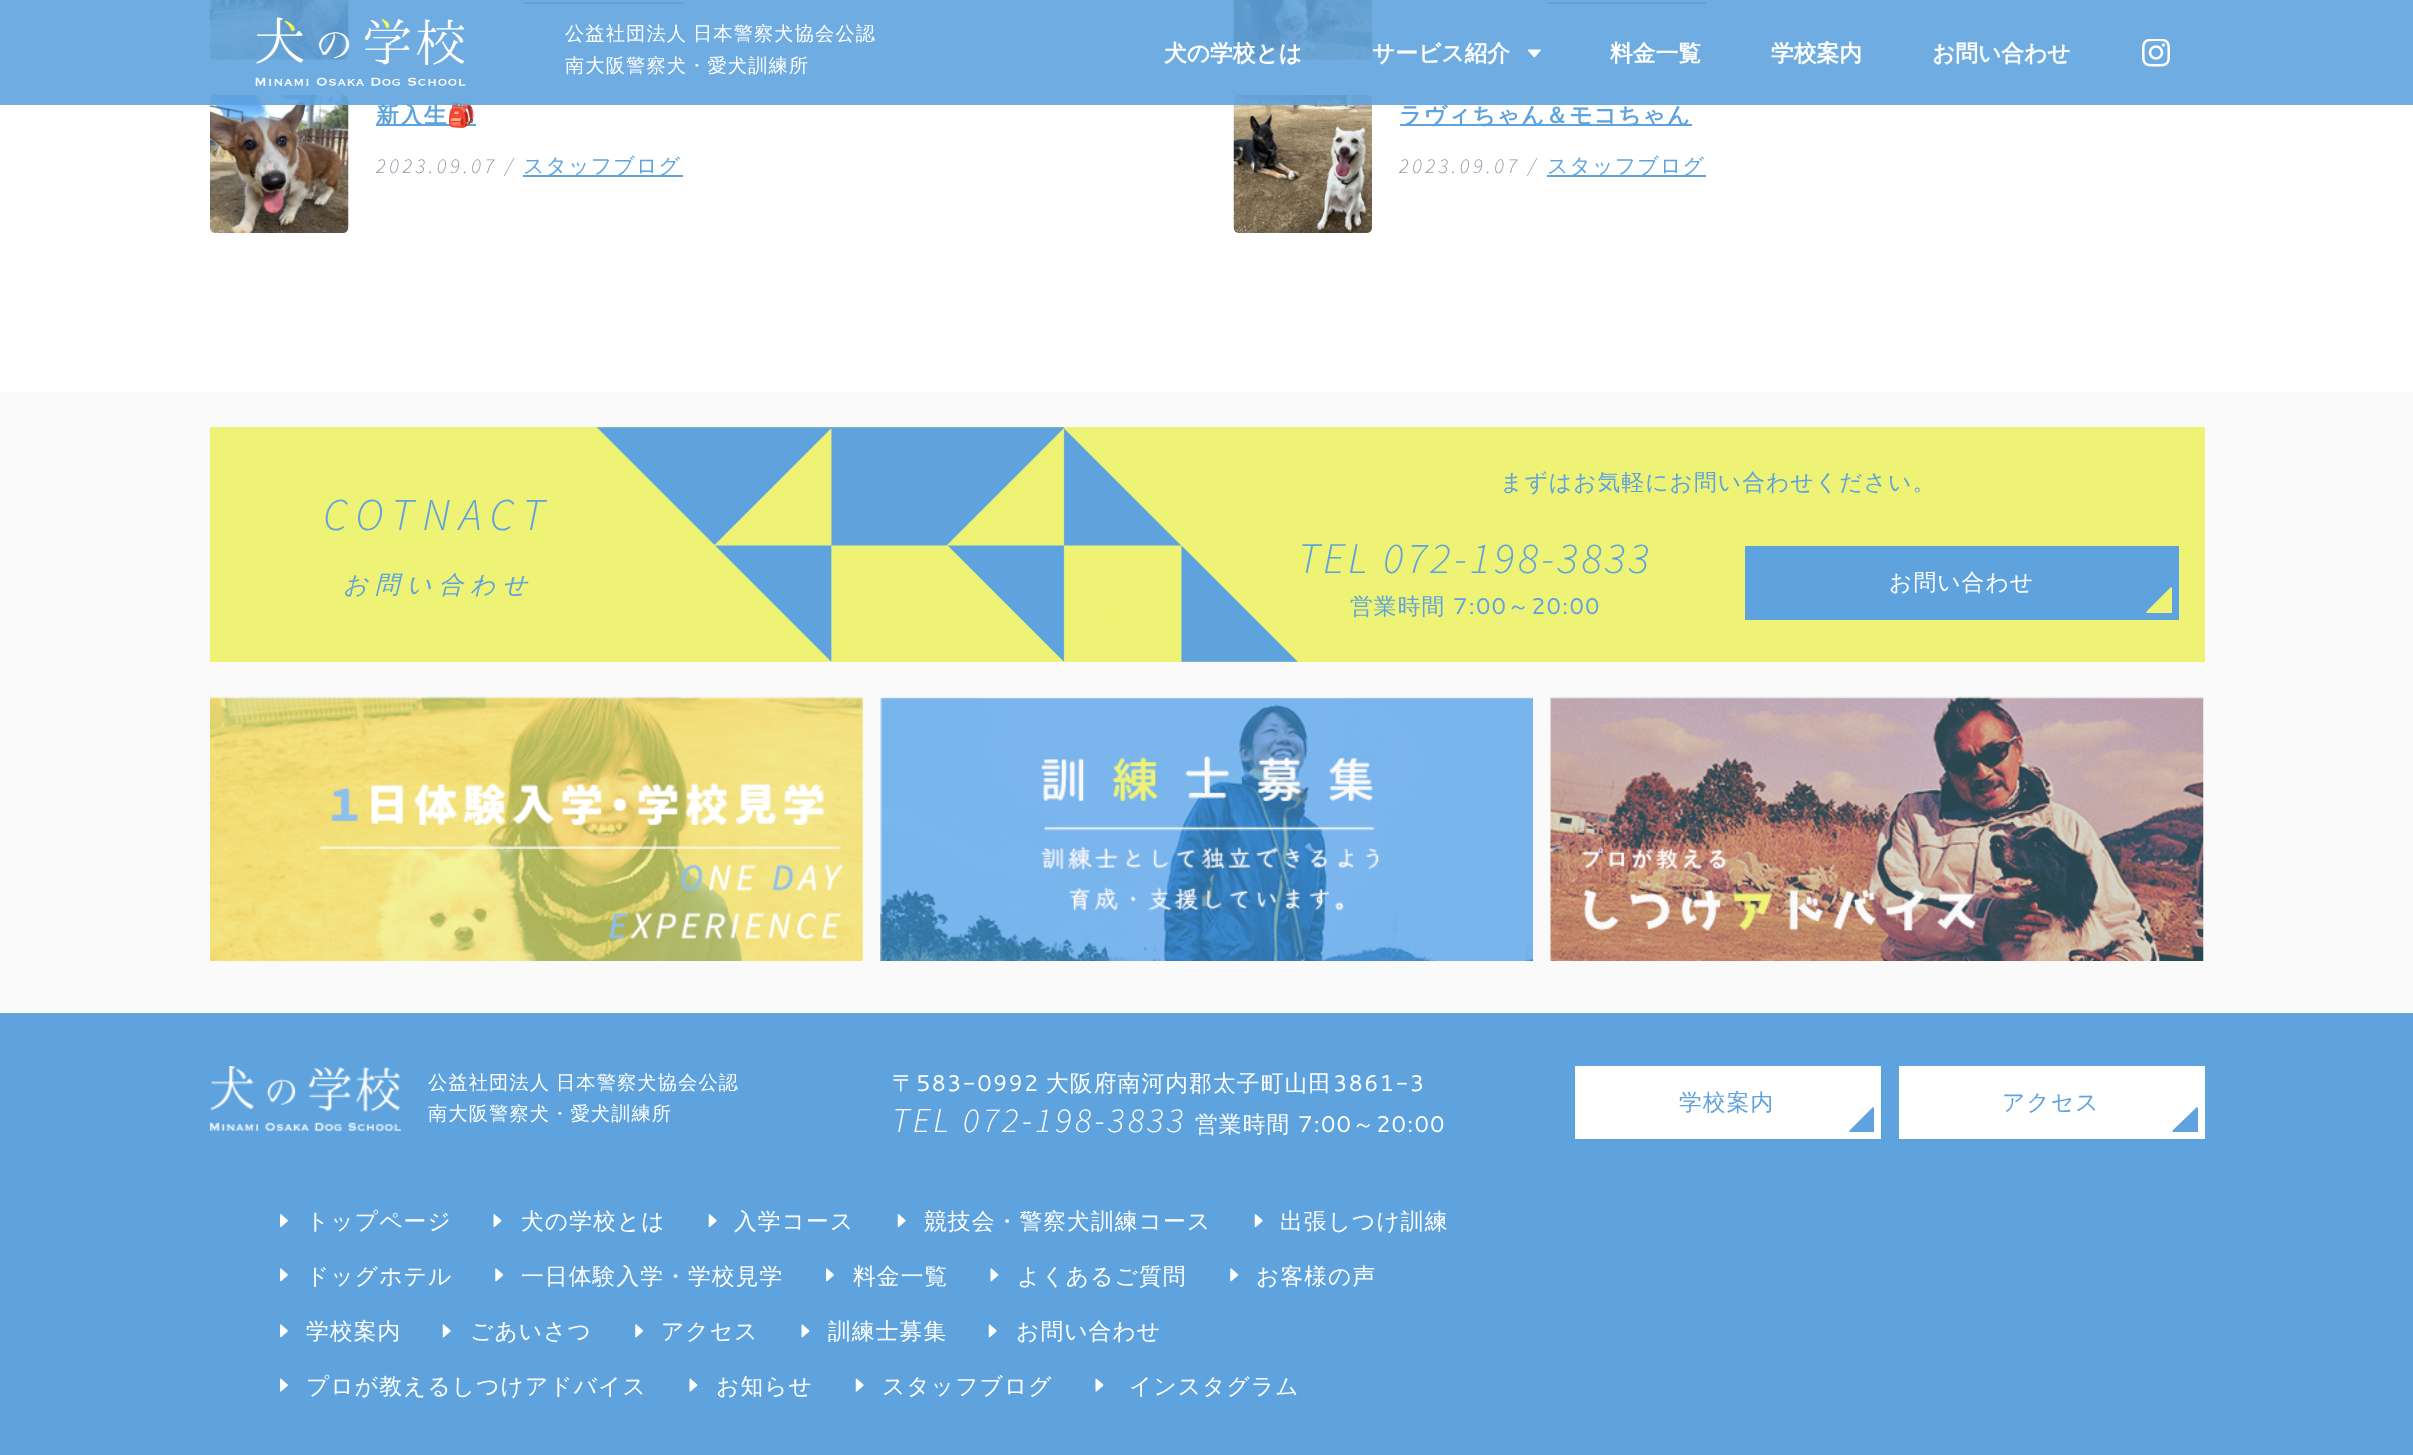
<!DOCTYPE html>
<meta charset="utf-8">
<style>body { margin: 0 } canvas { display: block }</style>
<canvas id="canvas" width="2413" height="1455"></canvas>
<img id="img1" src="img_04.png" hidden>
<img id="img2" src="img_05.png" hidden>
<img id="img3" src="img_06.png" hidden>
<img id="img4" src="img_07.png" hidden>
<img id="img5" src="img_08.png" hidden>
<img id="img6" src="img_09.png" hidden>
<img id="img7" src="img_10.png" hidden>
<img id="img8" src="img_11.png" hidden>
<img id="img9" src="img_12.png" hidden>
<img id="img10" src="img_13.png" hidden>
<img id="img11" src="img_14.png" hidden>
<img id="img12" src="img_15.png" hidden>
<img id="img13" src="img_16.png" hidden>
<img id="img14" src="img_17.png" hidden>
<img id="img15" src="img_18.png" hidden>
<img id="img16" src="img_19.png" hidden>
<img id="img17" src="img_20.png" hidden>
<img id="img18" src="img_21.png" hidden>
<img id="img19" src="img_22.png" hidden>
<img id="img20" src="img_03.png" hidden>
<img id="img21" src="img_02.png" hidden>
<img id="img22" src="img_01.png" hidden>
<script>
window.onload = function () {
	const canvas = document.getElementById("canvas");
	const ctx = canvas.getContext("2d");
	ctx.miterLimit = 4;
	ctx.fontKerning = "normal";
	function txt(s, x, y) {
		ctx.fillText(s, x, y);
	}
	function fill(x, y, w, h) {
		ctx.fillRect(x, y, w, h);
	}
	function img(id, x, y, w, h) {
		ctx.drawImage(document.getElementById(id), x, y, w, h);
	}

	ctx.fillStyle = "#FAFAFA";
	fill(0, 0, 2413, 1455);
	ctx.fillStyle = "#FFFFFF";
	fill(0, 0, 2413, 392);
	img("img1", 210, 0, 139, 60);
	ctx.fillStyle = "#5EA3DE";
	fill(523, 2, 160, 2);
	img("img2", 1233, 0, 139, 60);
	fill(1547, 2, 159, 2);
	img("img3", 210, 94, 139, 139);
	fill(376, 124, 100, 2);
	fill(523, 175, 160, 2);
	img("img4", 1233, 94, 139, 139);
	fill(1400, 124, 292, 2);
	fill(1547, 175, 159, 2);
	ctx.fillStyle = "#EEF375";
	fill(210, 427, 1995, 235);
	img("img5", 596, 427, 702, 235);
	ctx.fillStyle = "#5EA3DE";
	fill(1745, 546, 434, 74);
	ctx.save();
	ctx.beginPath();
	ctx.rect(1752, 553, 420, 60);
	ctx.clip();
	ctx.fillStyle = "#EEF375";
	ctx.beginPath();
	ctx.moveTo(2196, 612);
	ctx.lineTo(2171, 637);
	ctx.lineTo(2146, 612);
	ctx.lineTo(2171, 587);
	ctx.closePath();
	ctx.fill();
	ctx.restore();
	img("img6", 210, 696, 653, 265);
	img("img7", 880, 697, 653, 264);
	img("img8", 1550, 696, 654, 265);
	fill(0, 1013, 2413, 442);
	img("img9", 210, 1066, 191, 65);
	img("img10", 280, 1214, 8, 14);
	img("img11", 493, 1214, 9, 14);
	img("img12", 708, 1214, 9, 14);
	img("img12", 897, 1214, 9, 14);
	img("img12", 1254, 1214, 9, 14);
	img("img13", 280, 1268, 8, 14);
	img("img14", 495, 1268, 9, 14);
	img("img13", 826, 1268, 8, 14);
	img("img15", 990, 1268, 9, 14);
	img("img14", 1230, 1268, 9, 14);
	img("img13", 280, 1324, 8, 14);
	img("img16", 442, 1324, 9, 14);
	img("img14", 635, 1324, 9, 14);
	img("img15", 801, 1324, 9, 14);
	img("img16", 988, 1324, 9, 14);
	img("img17", 280, 1378, 8, 14);
	img("img18", 689, 1378, 9, 14);
	img("img19", 855, 1378, 9, 14);
	img("img18", 1095, 1378, 9, 14);
	ctx.fillStyle = "#FFFFFF";
	fill(1575, 1066, 306, 73);
	ctx.save();
	ctx.beginPath();
	ctx.rect(1582, 1073, 292, 59);
	ctx.clip();
	ctx.fillStyle = "#5EA3DE";
	ctx.beginPath();
	ctx.moveTo(1898, 1131);
	ctx.lineTo(1873, 1156);
	ctx.lineTo(1849, 1131);
	ctx.lineTo(1873, 1107);
	ctx.closePath();
	ctx.fill();
	ctx.restore();
	fill(1899, 1066, 306, 73);
	ctx.save();
	ctx.beginPath();
	ctx.rect(1906, 1073, 292, 59);
	ctx.clip();
	ctx.fillStyle = "#5EA3DE";
	ctx.beginPath();
	ctx.moveTo(2222, 1131);
	ctx.lineTo(2197, 1156);
	ctx.lineTo(2172, 1131);
	ctx.lineTo(2197, 1107);
	ctx.closePath();
	ctx.fill();
	ctx.restore();
	ctx.letterSpacing = "1.1px";
	ctx.font = "bold 22.75px WenQuanYi Zen Hei";
	ctx.fillStyle = "#5EA3DE";
	txt("新入生", 376, 123);
	ctx.font = "bold 22.75px Noto Color Emoji";
	txt("🎒", 447, 123);
	ctx.letterSpacing = "3.5px";
	ctx.font = "italic 300 21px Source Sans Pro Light";
	ctx.fillStyle = "#8D97A3";
	txt("2023.09.07 /", 376, 173);
	ctx.letterSpacing = "1.1px";
	ctx.font = "500 21px WenQuanYi Zen Hei";
	ctx.fillStyle = "#5EA3DE";
	txt("スタッフブログ", 523, 173);
	ctx.font = "bold 22.75px WenQuanYi Zen Hei";
	txt("ラヴィちゃん＆モコちゃん", 1399, 123);
	ctx.fillStyle = "rgba(94, 163, 222, 0.9)";
	fill(0, 0, 2413, 105);
	img("img20", 2142, 39, 28, 28);
	ctx.letterSpacing = "0px";
	ctx.fillStyle = "#FFFFFF";
	txt("お問い合わせ", 1932, 61);
	txt("学校案内", 1771, 61);
	txt("料金一覧", 1610, 61);
	img("img21", 1527, 49, 14, 9);
	txt("サービス紹介", 1372, 61);
	txt("犬の学校とは", 1164, 61);
	ctx.letterSpacing = "1.1px";
	ctx.font = "500 19.25px WenQuanYi Zen Hei";
	txt("南大阪警察犬・愛犬訓練所", 565, 72);
	ctx.wordSpacing = "-1px";
	txt("公益社団法人 日本警察犬協会公認", 565, 40);
	img("img22", 255, 17, 211, 69);
	ctx.letterSpacing = "3.5px";
	ctx.wordSpacing = "0px";
	ctx.font = "italic 300 21px Source Sans Pro Light";
	ctx.fillStyle = "#8D97A3";
	txt("2023.09.07 /", 1399, 173);
	ctx.letterSpacing = "1.1px";
	ctx.font = "500 21px WenQuanYi Zen Hei";
	ctx.fillStyle = "#5EA3DE";
	txt("スタッフブログ", 1547, 173);
	ctx.letterSpacing = "9px";
	ctx.font = "italic 300 45.5px Source Sans Pro Light";
	txt("COTNACT", 323, 530);
	ctx.letterSpacing = "7px";
	ctx.font = "italic 500 24.5px WenQuanYi Zen Hei";
	txt("お問い合わせ", 343, 593);
	ctx.letterSpacing = "1.1px";
	ctx.font = "500 22.75px WenQuanYi Zen Hei";
	txt("まずはお気軽にお問い合わせください。", 1500, 490);
	ctx.letterSpacing = "3.5px";
	ctx.font = "italic 300 43.75px Source Sans Pro Light";
	txt("TEL 072-198-3833", 1298, 573);
	ctx.letterSpacing = "1.1px";
	ctx.font = "500 22.75px WenQuanYi Zen Hei";
	txt("営業時間", 1350, 614);
	ctx.font = "22.75px Cantarell";
	txt("7:00", 1453, 614);
	ctx.font = "500 22.75px WenQuanYi Zen Hei";
	txt("～", 1507, 614);
	ctx.font = "22.75px Cantarell";
	txt("20:00", 1531, 614);
	ctx.font = "500 22.75px WenQuanYi Zen Hei";
	ctx.fillStyle = "#FFFFFF";
	txt("お問い合わせ", 1889, 590);
	ctx.wordSpacing = "-1px";
	ctx.font = "500 19.25px WenQuanYi Zen Hei";
	txt("公益社団法人 日本警察犬協会公認", 428, 1089);
	ctx.wordSpacing = "0px";
	txt("南大阪警察犬・愛犬訓練所", 428, 1120);
	ctx.font = "500 22.75px WenQuanYi Zen Hei";
	txt("〒", 892, 1091);
	ctx.font = "22.75px Cantarell";
	txt("583-0992", 916, 1091);
	ctx.font = "500 22.75px WenQuanYi Zen Hei";
	txt("大阪府南河内郡太子町山田", 1046, 1091);
	ctx.font = "22.75px Cantarell";
	txt("3861-3", 1333, 1091);
	ctx.letterSpacing = "3.5px";
	ctx.font = "italic 300 35px Source Sans Pro Light";
	txt("TEL 072-198-3833", 892, 1132);
	ctx.letterSpacing = "1.1px";
	ctx.font = "500 22.75px WenQuanYi Zen Hei";
	txt("営業時間", 1195, 1132);
	ctx.font = "22.75px Cantarell";
	txt("7:00", 1298, 1132);
	ctx.font = "500 22.75px WenQuanYi Zen Hei";
	txt("～", 1352, 1132);
	ctx.font = "22.75px Cantarell";
	txt("20:00", 1376, 1132);
	ctx.font = "500 22.75px WenQuanYi Zen Hei";
	txt("トップページ", 306, 1229);
	txt("犬の学校とは", 521, 1229);
	txt("入学コース", 734, 1229);
	txt("競技会・警察犬訓練コース", 924, 1229);
	txt("出張しつけ訓練", 1280, 1229);
	txt("ドッグホテル", 306, 1284);
	txt("一日体験入学・学校見学", 521, 1284);
	txt("料金一覧", 853, 1284);
	txt("よくあるご質問", 1017, 1284);
	txt("お客様の声", 1256, 1284);
	txt("学校案内", 306, 1339);
	txt("ごあいさつ", 470, 1339);
	txt("アクセス", 661, 1339);
	txt("訓練士募集", 828, 1339);
	txt("お問い合わせ", 1016, 1339);
	txt("プロが教えるしつけアドバイス", 306, 1394);
	txt("お知らせ", 716, 1394);
	txt("スタッフブログ", 882, 1394);
	txt("インスタグラム", 1129, 1394);
	ctx.fillStyle = "#5EA3DE";
	txt("学校案内", 1679, 1110);
	txt("アクセス", 2002, 1110);
};
</script>
